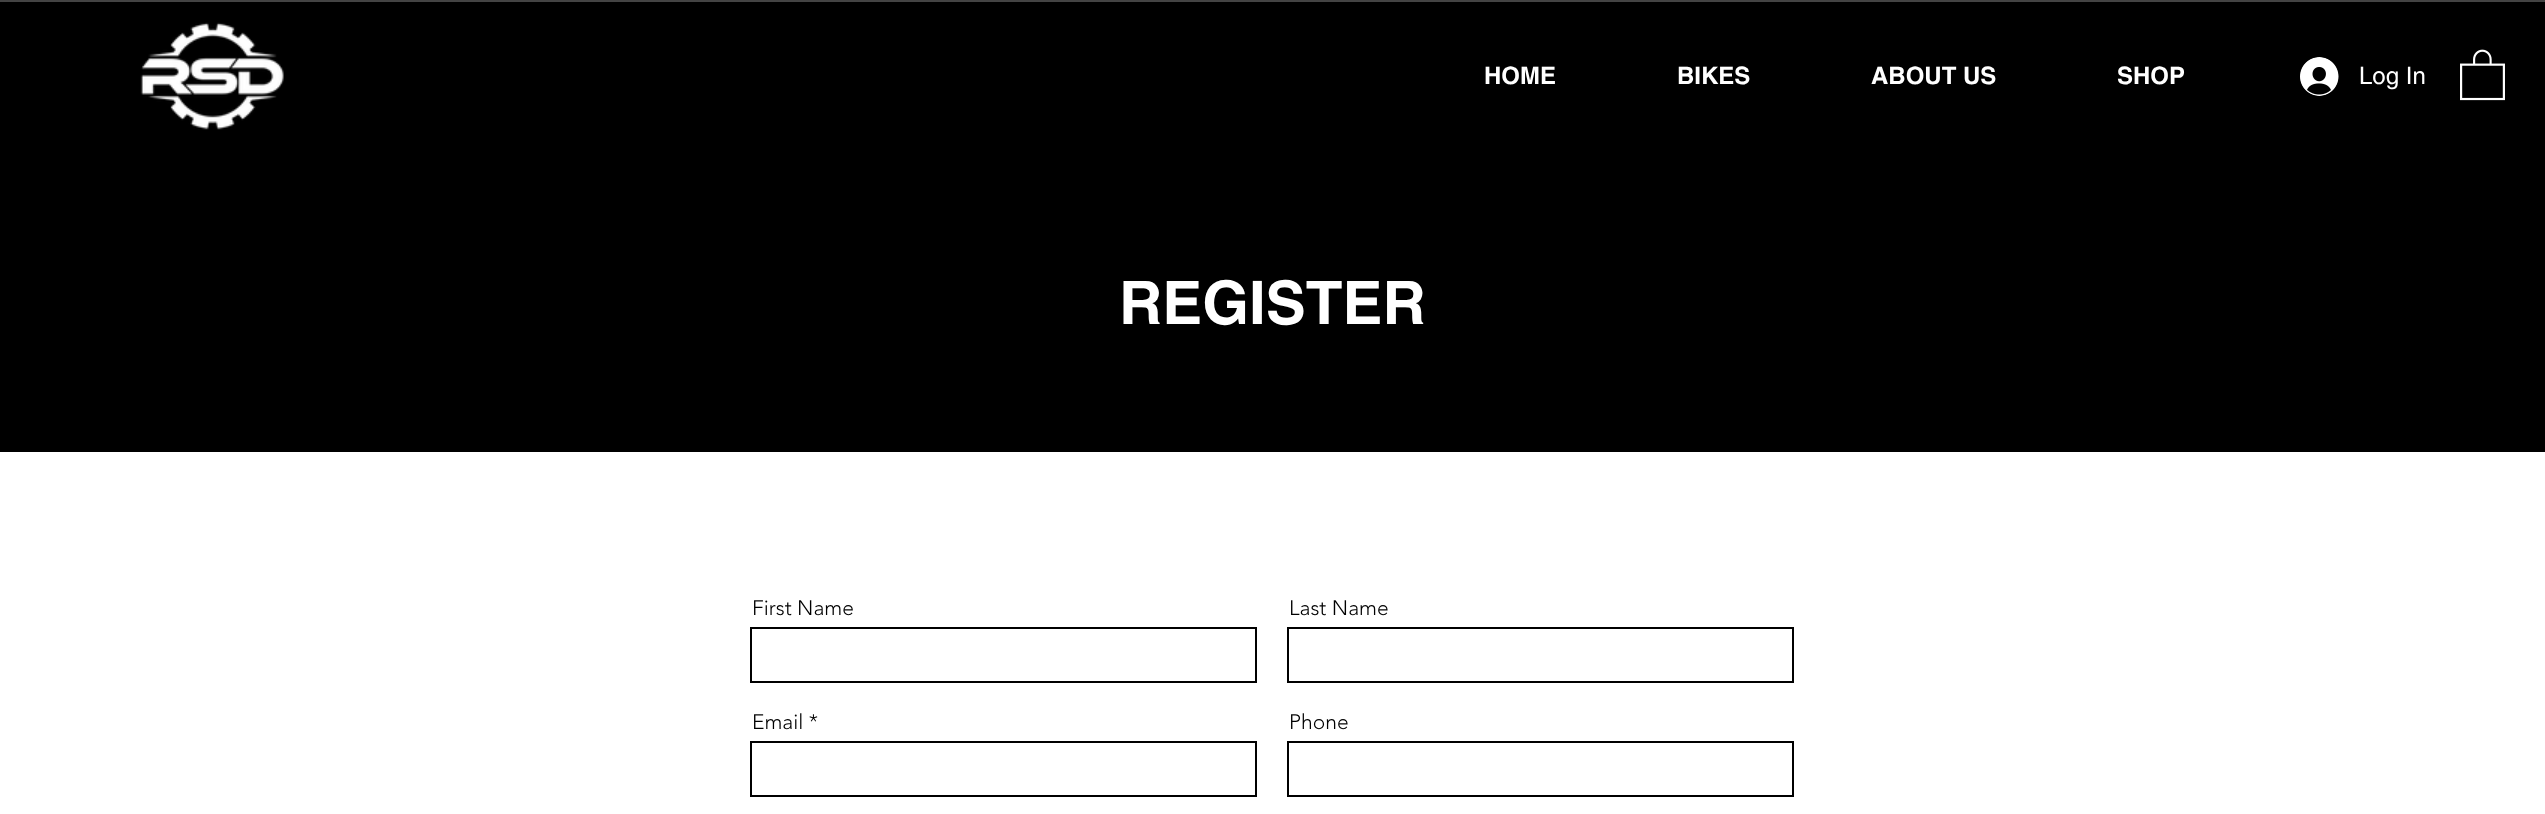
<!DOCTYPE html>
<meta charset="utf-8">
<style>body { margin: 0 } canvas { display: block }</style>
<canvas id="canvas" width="2545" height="814"></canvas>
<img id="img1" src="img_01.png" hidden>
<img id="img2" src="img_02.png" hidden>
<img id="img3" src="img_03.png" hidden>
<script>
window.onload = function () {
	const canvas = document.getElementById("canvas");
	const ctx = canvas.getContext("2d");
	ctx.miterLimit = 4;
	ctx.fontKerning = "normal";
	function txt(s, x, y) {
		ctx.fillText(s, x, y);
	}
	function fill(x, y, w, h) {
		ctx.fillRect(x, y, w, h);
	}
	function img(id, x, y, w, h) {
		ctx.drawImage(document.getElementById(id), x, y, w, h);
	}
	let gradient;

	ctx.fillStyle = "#FFFFFF";
	fill(0, 0, 2545, 814);
	gradient = ctx.createLinearGradient(254, 0, 254, 159);
	gradient.addColorStop(0, "rgba(0, 0, 0, 0.74)");
	gradient.addColorStop(1, "rgba(0, 0, 0, 0)");
	ctx.fillStyle = gradient;
	fill(0, 0, 509, 2);
	ctx.fillStyle = "#000000";
	fill(0, 2, 2545, 450);
	img("img1", 140, 22, 144, 108);
	gradient = ctx.createLinearGradient(1527, 0, 1527, 159);
	gradient.addColorStop(0, "rgba(0, 0, 0, 0.74)");
	gradient.addColorStop(1, "rgba(0, 0, 0, 0)");
	ctx.fillStyle = gradient;
	fill(509, 0, 2036, 2);
	img("img2", 2300, 57, 39, 39);
	img("img3", 2460, 49, 45, 52);
	ctx.strokeStyle = "#000000";
	ctx.lineWidth = 2;
	ctx.strokeRect(751, 628, 505, 54);
	ctx.strokeRect(1288, 628, 505, 54);
	ctx.strokeRect(751, 742, 505, 54);
	ctx.strokeRect(1288, 742, 505, 54);
	ctx.font = "bold 24px helvetica";
	ctx.fillStyle = "#FFFFFF";
	txt("HOME", 1484, 84);
	txt("BIKES", 1677, 84);
	txt("ABOUT US", 1871, 84);
	txt("SHOP", 2117, 84);
	ctx.font = "24px helvetica";
	txt("Log In", 2359, 84);
	ctx.font = "bold 60px helvetica";
	txt("REGISTER", 1119, 324);
	ctx.font = "300 21px 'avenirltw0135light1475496'";
	ctx.fillStyle = "#000000";
	txt("First Name", 752, 615);
	txt("Last Name", 1289, 615);
	txt("Email *", 752, 729);
	txt("Phone", 1289, 729);
};
</script>
